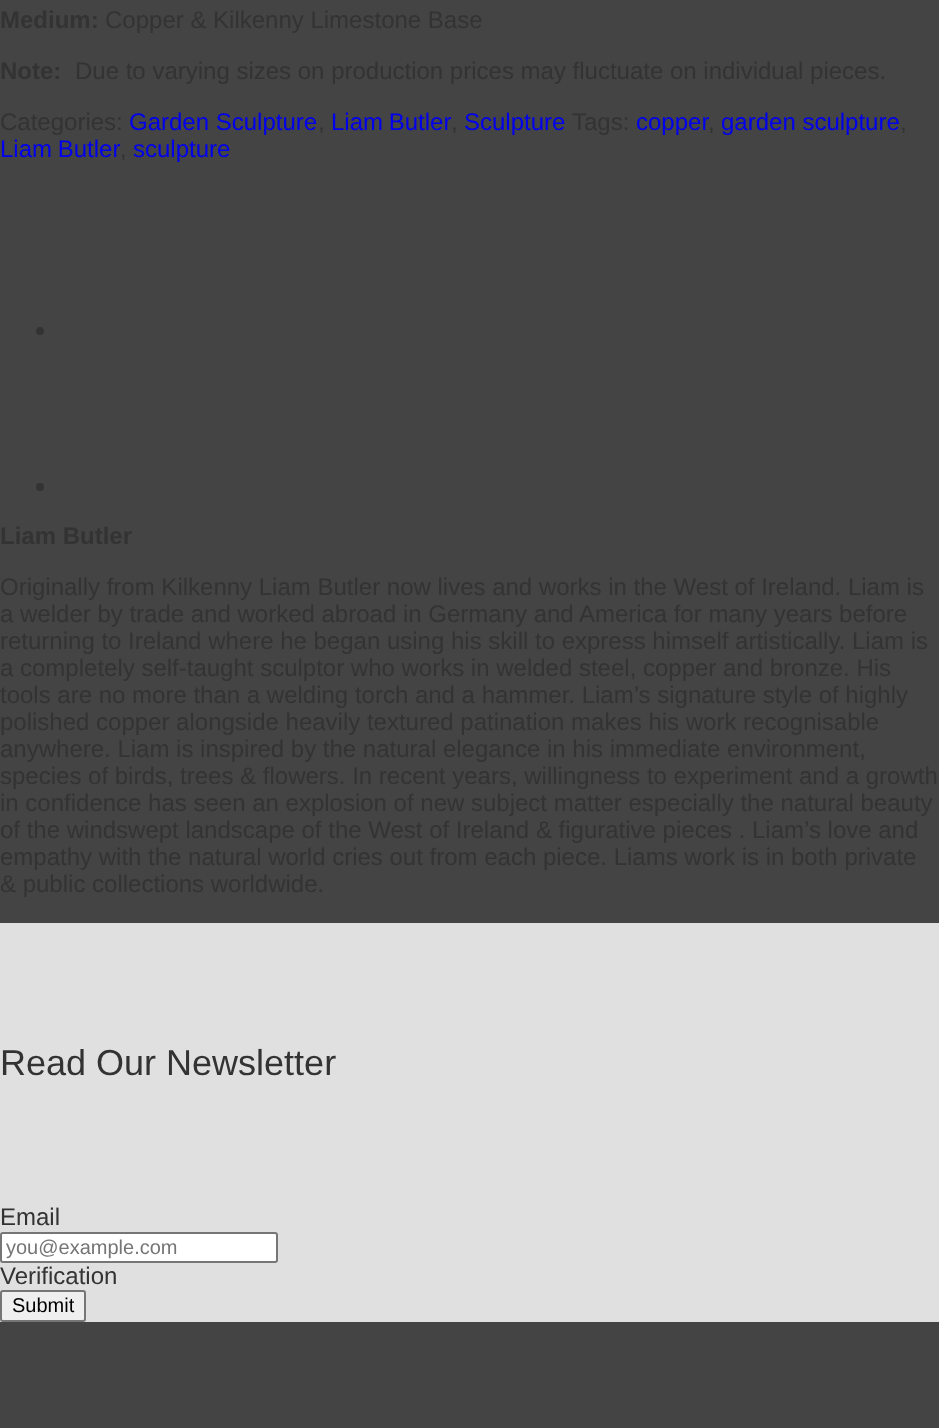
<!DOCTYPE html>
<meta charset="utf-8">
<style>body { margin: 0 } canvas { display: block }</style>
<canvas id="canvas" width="939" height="1428"></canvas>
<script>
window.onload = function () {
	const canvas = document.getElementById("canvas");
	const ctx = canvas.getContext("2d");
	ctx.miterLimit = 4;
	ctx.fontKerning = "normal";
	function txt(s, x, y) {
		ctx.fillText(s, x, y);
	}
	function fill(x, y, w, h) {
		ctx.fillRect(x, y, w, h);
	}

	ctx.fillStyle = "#444444";
	fill(0, 0, 939, 1428);
	ctx.fillStyle = "#333333";
	ctx.beginPath();
	ctx.arc(40, 331, 4, 0, Math.PI * 2);
	ctx.fill();
	ctx.beginPath();
	ctx.arc(40, 487, 4, 0, Math.PI * 2);
	ctx.fill();
	ctx.fillStyle = "#E0E0E0";
	fill(0, 923, 939, 399);
	ctx.fillStyle = "#FFFFFF";
	ctx.beginPath();
	ctx.roundRect(1, 1233, 276, 29, 2);
	ctx.fill();
	ctx.strokeStyle = "#767676";
	ctx.lineWidth = 2;
	ctx.stroke();
	ctx.fillStyle = "#EFEFEF";
	ctx.beginPath();
	ctx.roundRect(1, 1291, 84, 30, 2);
	ctx.fill();
	ctx.stroke();
	ctx.font = "bold 24px Liberation Sans";
	ctx.fillStyle = "#333333";
	txt("Medium:", 0, 28);
	ctx.font = "24px Liberation Sans";
	txt("Copper & Kilkenny Limestone Base", 105, 28);
	ctx.font = "bold 24px Liberation Sans";
	txt("Note:", 0, 79);
	ctx.font = "24px Liberation Sans";
	txt("Due to varying sizes on production prices may fluctuate on individual pieces.", 75, 79);
	txt("Categories:", 0, 130);
	ctx.fillStyle = "#0000EE";
	txt("Garden Sculpture", 129, 130);
	ctx.fillStyle = "#333333";
	txt(",", 318, 130);
	ctx.wordSpacing = "-1px";
	ctx.fillStyle = "#0000EE";
	txt("Liam Butler", 331, 130);
	ctx.wordSpacing = "0px";
	ctx.fillStyle = "#333333";
	txt(",", 451, 130);
	ctx.fillStyle = "#0000EE";
	txt("Sculpture", 464, 130);
	ctx.fillStyle = "#333333";
	txt("Tags:", 572, 130);
	ctx.fillStyle = "#0000EE";
	txt("copper", 636, 130);
	ctx.fillStyle = "#333333";
	txt(",", 708, 130);
	ctx.fillStyle = "#0000EE";
	txt("garden sculpture", 721, 130);
	ctx.fillStyle = "#333333";
	txt(",", 900, 130);
	ctx.wordSpacing = "-1px";
	ctx.fillStyle = "#0000EE";
	txt("Liam Butler", 0, 157);
	ctx.wordSpacing = "0px";
	ctx.fillStyle = "#333333";
	txt(",", 120, 157);
	ctx.fillStyle = "#0000EE";
	txt("sculpture", 133, 157);
	ctx.font = "bold 24px Liberation Sans";
	ctx.fillStyle = "#333333";
	txt("Liam Butler", 0, 544);
	ctx.font = "24px Liberation Sans";
	txt("Originally from Kilkenny Liam Butler now lives and works in the West of Ireland. Liam is", 0, 595);
	txt("a welder by trade and worked abroad in Germany and America for many years before", 0, 622);
	txt("returning to Ireland where he began using his skill to express himself artistically. Liam is", 0, 649);
	txt("a completely self-taught sculptor who works in welded steel, copper and bronze. His", 0, 676);
	txt("tools are no more than a welding torch and a hammer. Liam’s signature style of highly", 0, 703);
	txt("polished copper alongside heavily textured patination makes his work recognisable", 0, 730);
	txt("anywhere. Liam is inspired by the natural elegance in his immediate environment,", 0, 757);
	txt("species of birds, trees & flowers. In recent years, willingness to experiment and a growth", 0, 784);
	txt("in confidence has seen an explosion of new subject matter especially the natural beauty", 0, 811);
	txt("of the windswept landscape of the West of Ireland & figurative pieces . Liam’s love and", 0, 838);
	txt("empathy with the natural world cries out from each piece. Liams work is in both private", 0, 865);
	txt("& public collections worldwide.", 0, 892);
	ctx.font = "36px Liberation Sans";
	txt("Read Our Newsletter", 0, 1075);
	ctx.font = "24px Liberation Sans";
	txt("Email", 0, 1225);
	ctx.font = "20px Liberation Sans";
	ctx.fillStyle = "#757575";
	txt("you@example.com", 6, 1254);
	ctx.font = "24px Liberation Sans";
	ctx.fillStyle = "#333333";
	txt("Verification", 0, 1284);
	ctx.font = "20px Liberation Sans";
	ctx.fillStyle = "#000000";
	txt("Submit", 12, 1312);
};
</script>
